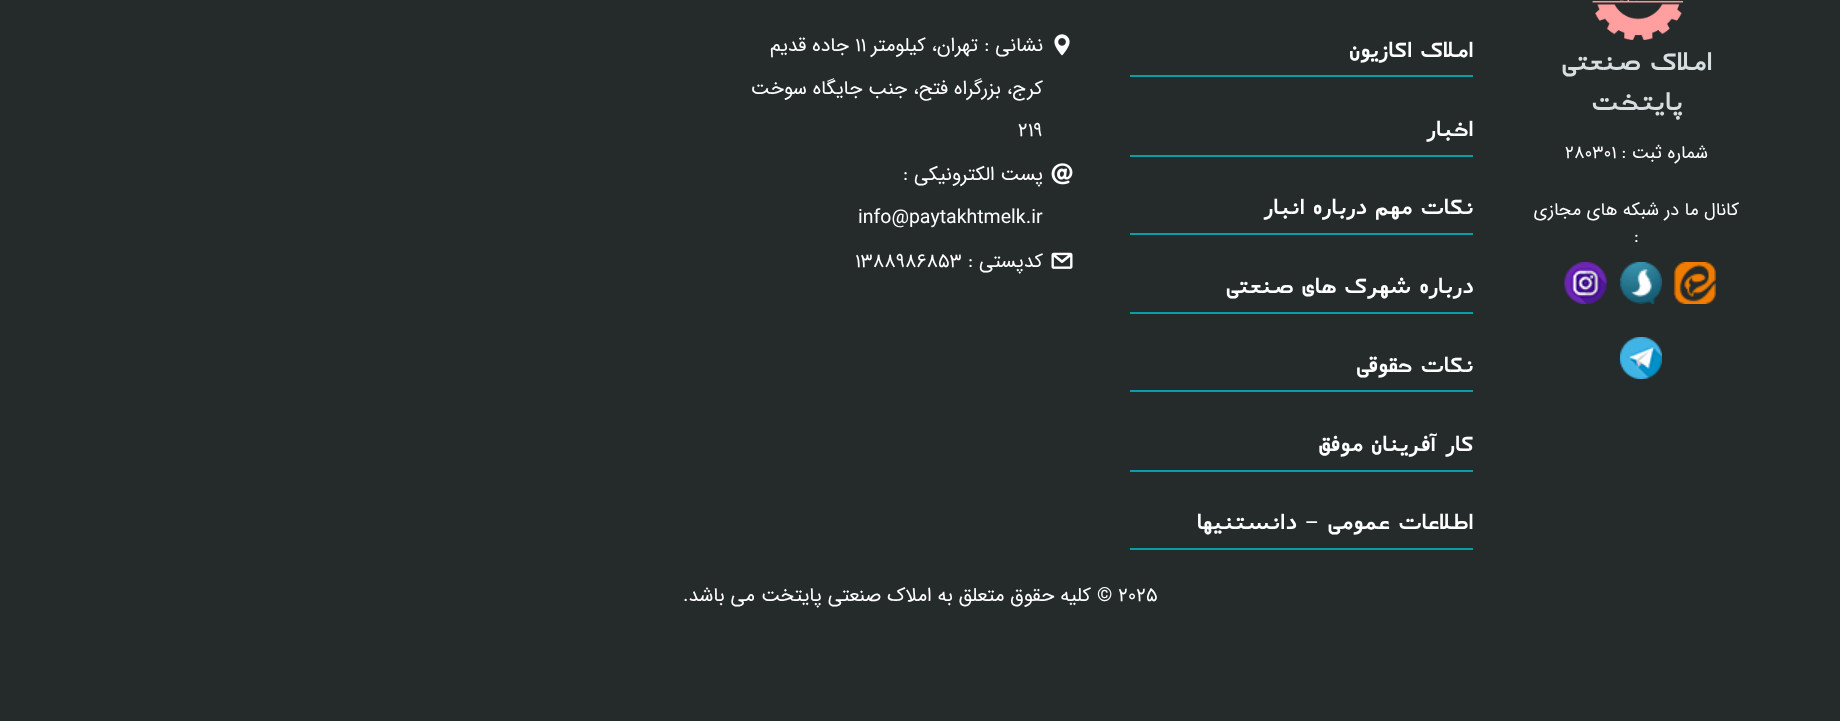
<!DOCTYPE html>
<meta charset="utf-8">
<style>body { margin: 0 } canvas { display: block }</style>
<canvas id="canvas" width="1840" height="721"></canvas>
<img id="img1" src="img_01.png" hidden>
<img id="img2" src="img_02.png" hidden>
<img id="img3" src="img_03.png" hidden>
<img id="img4" src="img_04.png" hidden>
<img id="img5" src="img_05.png" hidden>
<img id="img6" src="img_06.png" hidden>
<img id="img7" src="img_07.png" hidden>
<img id="img8" src="img_08.png" hidden>
<script>
window.onload = function () {
	const canvas = document.getElementById("canvas");
	const ctx = canvas.getContext("2d");
	ctx.miterLimit = 4;
	ctx.fontKerning = "normal";
	function txt(s, x, y) {
		ctx.fillText(s, x, y);
	}
	function fill(x, y, w, h) {
		ctx.fillRect(x, y, w, h);
	}
	function img(id, x, y, w, h) {
		ctx.drawImage(document.getElementById(id), x, y, w, h);
	}

	ctx.fillStyle = "#252A2B";
	fill(0, 0, 1840, 721);
	img("img1", 1592, 0, 91, 40);
	img("img2", 1674, 262, 42, 42);
	img("img3", 1620, 262, 42, 42);
	img("img4", 1564, 262, 43, 42);
	img("img5", 1620, 337, 42, 42);
	ctx.fillStyle = "#079EAB";
	fill(1130, 75, 343, 2);
	fill(1130, 155, 343, 2);
	fill(1130, 233, 343, 2);
	fill(1130, 312, 343, 2);
	fill(1130, 390, 343, 2);
	fill(1130, 470, 343, 2);
	fill(1130, 548, 343, 2);
	img("img6", 1054, 34, 16, 22);
	img("img7", 1051, 163, 22, 22);
	img("img8", 1051, 252, 22, 17);
	ctx.direction = "rtl";
	ctx.font = "40.5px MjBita";
	ctx.fillStyle = "#D6DEE0";
	txt("املاک صنعتی", 1712, 70);
	txt("پایتخت", 1682, 110);
	ctx.font = "18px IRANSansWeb";
	ctx.fillStyle = "#FFFFFF";
	txt("شماره ثبت :", 1708, 158);
	ctx.direction = "ltr";
	txt("۲۸۰۳۰۱", 1565, 158);
	ctx.direction = "rtl";
	txt("کانال ما در شبکه های مجازی", 1739, 215);
	ctx.direction = "ltr";
	txt(":", 1634, 242);
	ctx.direction = "rtl";
	ctx.font = "34.5px MjBita";
	txt("املاک اکازیون", 1473, 57);
	txt("اخبار", 1473, 136);
	txt("نکات مهم درباره انبار", 1473, 214);
	txt("درباره شهرک های صنعتی", 1473, 293);
	txt("نکات حقوقی", 1473, 372);
	txt("کار آفرینان موفق", 1473, 451);
	txt("اطلاعات عمومی - دانستنیها", 1473, 529);
	ctx.font = "19.5px IRANSansWeb";
	txt("نشانی :", 1043, 51);
	txt("تهران، کیلومتر", 978, 51);
	ctx.direction = "ltr";
	txt("۱۱", 855, 51);
	ctx.direction = "rtl";
	txt("جاده قدیم", 849, 51);
	txt("کرج، بزرگراه فتح، جنب جایگاه سوخت", 1043, 94);
	ctx.direction = "ltr";
	txt("۲۱۹", 1018, 136);
	ctx.direction = "rtl";
	txt("پست الکترونیکی :", 1043, 180);
	ctx.direction = "ltr";
	txt("info@paytakhtmelk.ir", 858, 223);
	ctx.direction = "rtl";
	txt("کدپستی :", 1043, 267);
	ctx.direction = "ltr";
	txt("۱۳۸۸۹۸۶۸۵۳", 855, 267);
	txt("© ۲۰۲۵", 1097, 601);
	ctx.direction = "rtl";
	txt("کلیه حقوق متعلق به املاک صنعتی پایتخت", 1091, 601);
	txt("می باشد.", 755, 601);
};
</script>
